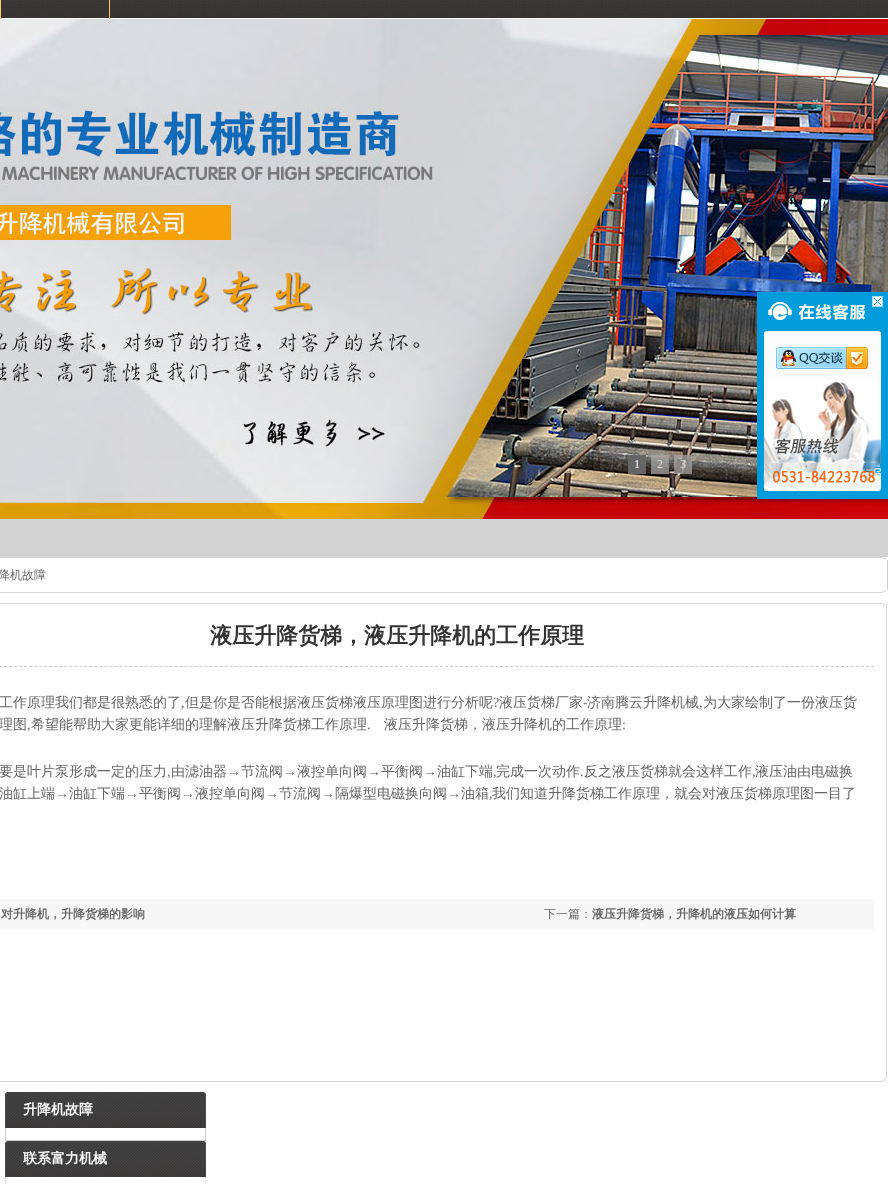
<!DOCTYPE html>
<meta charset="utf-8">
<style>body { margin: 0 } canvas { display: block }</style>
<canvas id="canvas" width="888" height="1184"></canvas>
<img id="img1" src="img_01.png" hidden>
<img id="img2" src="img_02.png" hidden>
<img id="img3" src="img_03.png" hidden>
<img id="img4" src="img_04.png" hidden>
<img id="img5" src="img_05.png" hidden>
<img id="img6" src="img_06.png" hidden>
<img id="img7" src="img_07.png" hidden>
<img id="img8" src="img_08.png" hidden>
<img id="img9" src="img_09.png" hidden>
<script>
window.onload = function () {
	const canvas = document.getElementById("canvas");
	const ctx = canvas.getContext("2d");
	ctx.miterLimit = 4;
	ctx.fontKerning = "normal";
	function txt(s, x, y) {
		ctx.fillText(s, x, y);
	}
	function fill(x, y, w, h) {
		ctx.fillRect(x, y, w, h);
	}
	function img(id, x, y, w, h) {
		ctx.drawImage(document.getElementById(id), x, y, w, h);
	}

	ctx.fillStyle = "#FFFFFF";
	fill(0, 0, 888, 1184);
	img("img1", 1, 0, 887, 19);
	ctx.fillStyle = "#FFC86B";
	fill(109, 0, 1, 19);
	fill(0, 0, 1, 19);
	img("img2", 0, 19, 888, 500);
	ctx.fillStyle = "#666666";
	fill(628, 455, 18, 19);
	ctx.fillStyle = "rgba(170, 170, 170, 0.7)";
	fill(651, 455, 18, 19);
	fill(674, 455, 18, 19);
	img("img3", 757, 292, 131, 40);
	img("img4", 872, 296, 11, 11);
	ctx.fillStyle = "#FBFBFB";
	fill(764, 332, 117, 48);
	ctx.fillStyle = "#029BDB";
	fill(881, 332, 7, 48);
	fill(757, 332, 7, 48);
	img("img5", 776, 347, 92, 22);
	img("img6", 757, 380, 131, 119);
	ctx.fillStyle = "#D2D2D2";
	fill(0, 519, 888, 38);
	img("img7", 0, 557, 886, 3);
	ctx.fillStyle = "#CCCCCC";
	fill(887, 560, 1, 30);
	img("img8", 0, 590, 886, 3);
	img("img7", 0, 603, 886, 3);
	ctx.fillStyle = "#D5D5D5";
	fill(886, 606, 1, 473);
	ctx.beginPath();
	ctx.moveTo(-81, 666.5);
	ctx.lineTo(874, 666.5);
	ctx.strokeStyle = "#CCCCCC";
	ctx.setLineDash([3, 2.01]);
	ctx.stroke();
	ctx.fillStyle = "#F7F7F7";
	fill(0, 899, 874, 30);
	img("img8", 0, 1079, 886, 3);
	img("img9", 5, 1092, 201, 36);
	ctx.fillStyle = "#CCCCCC";
	fill(205, 1128, 1, 13);
	fill(5, 1140, 201, 1);
	fill(5, 1128, 1, 13);
	img("img9", 5, 1141, 201, 36);
	ctx.fillStyle = "#DFDFDF";
	fill(205, 1177, 1, 7);
	fill(5, 1177, 1, 7);
	ctx.font = "12px Liberation Serif";
	ctx.fillStyle = "#FFFFFF";
	txt("1", 634, 468);
	ctx.fillStyle = "#DEDDDD";
	txt("2", 657, 468);
	txt("3", 680, 468);
	ctx.font = "500 12px WenQuanYi Zen Hei";
	ctx.fillStyle = "#666666";
	txt("降机故障", -2, 579);
	ctx.font = "bold 22px WenQuanYi Zen Hei";
	ctx.fillStyle = "#333333";
	txt("液压升降货梯，液压升降机的工作原理", 210, 643);
	ctx.font = "500 14px WenQuanYi Zen Hei";
	ctx.fillStyle = "#666666";
	txt("工作原理我们都是很熟悉的了", -1, 707);
	txt("但是你是否能根据液压货梯液压原理图进行分析呢", 185, 707);
	ctx.font = "14px Liberation Serif";
	txt("?", 493, 707);
	ctx.font = "500 14px WenQuanYi Zen Hei";
	txt("液压货梯厂家", 499, 707);
	ctx.font = "14px Liberation Serif";
	txt("-", 583, 707);
	ctx.font = "500 14px WenQuanYi Zen Hei";
	txt("济南腾云升降机械", 587, 707);
	txt("为大家绘制了一份液压货", 703, 707);
	ctx.font = "14px Liberation Serif";
	txt(",", 181, 707);
	txt(",", 699, 707);
	ctx.font = "500 14px WenQuanYi Zen Hei";
	txt("理图", -1, 729);
	ctx.font = "14px Liberation Serif";
	txt(",", 27, 729);
	ctx.font = "500 14px WenQuanYi Zen Hei";
	txt("希望能帮助大家更能详细的理解液压升降货梯工作原理", 31, 729);
	ctx.font = "14px Liberation Serif";
	txt(".", 367, 729);
	ctx.font = "500 14px WenQuanYi Zen Hei";
	txt("液压升降货梯，液压升降机的工作原理", 384, 729);
	ctx.font = "14px Liberation Serif";
	txt(":", 622, 729);
	ctx.font = "500 14px WenQuanYi Zen Hei";
	txt("要是叶片泵形成一定的压力", -1, 776);
	ctx.font = "14px Liberation Serif";
	txt(",", 167, 776);
	ctx.font = "500 14px WenQuanYi Zen Hei";
	txt("由滤油器", 171, 776);
	ctx.font = "14px Liberation Serif";
	txt("→", 227, 776);
	ctx.font = "500 14px WenQuanYi Zen Hei";
	txt("节流阀", 241, 776);
	ctx.font = "14px Liberation Serif";
	txt("→", 283, 776);
	ctx.font = "500 14px WenQuanYi Zen Hei";
	txt("液控单向阀", 297, 776);
	ctx.font = "14px Liberation Serif";
	txt("→", 367, 776);
	ctx.font = "500 14px WenQuanYi Zen Hei";
	txt("平衡阀", 381, 776);
	ctx.font = "14px Liberation Serif";
	txt("→", 423, 776);
	ctx.font = "500 14px WenQuanYi Zen Hei";
	txt("油缸下端", 437, 776);
	ctx.font = "14px Liberation Serif";
	txt(",", 493, 776);
	ctx.font = "500 14px WenQuanYi Zen Hei";
	txt("完成一次动作", 496, 776);
	ctx.font = "14px Liberation Serif";
	txt(".", 580, 776);
	ctx.font = "500 14px WenQuanYi Zen Hei";
	txt("反之液压货梯就会这样工作", 584, 776);
	ctx.font = "14px Liberation Serif";
	txt(",", 752, 776);
	ctx.font = "500 14px WenQuanYi Zen Hei";
	txt("液压油由电磁换", 755, 776);
	txt("油缸上端", -1, 798);
	ctx.font = "14px Liberation Serif";
	txt("→", 55, 798);
	ctx.font = "500 14px WenQuanYi Zen Hei";
	txt("油缸下端", 69, 798);
	ctx.font = "14px Liberation Serif";
	txt("→", 125, 798);
	ctx.font = "500 14px WenQuanYi Zen Hei";
	txt("平衡阀", 139, 798);
	ctx.font = "14px Liberation Serif";
	txt("→", 181, 798);
	ctx.font = "500 14px WenQuanYi Zen Hei";
	txt("液控单向阀", 195, 798);
	ctx.font = "14px Liberation Serif";
	txt("→", 265, 798);
	ctx.font = "500 14px WenQuanYi Zen Hei";
	txt("节流阀", 279, 798);
	ctx.font = "14px Liberation Serif";
	txt("→", 321, 798);
	ctx.font = "500 14px WenQuanYi Zen Hei";
	txt("隔爆型电磁换向阀", 335, 798);
	ctx.font = "14px Liberation Serif";
	txt("→", 447, 798);
	ctx.font = "500 14px WenQuanYi Zen Hei";
	txt("油箱", 461, 798);
	ctx.font = "14px Liberation Serif";
	txt(",", 489, 798);
	ctx.font = "500 14px WenQuanYi Zen Hei";
	txt("我们知道升降货梯工作原理，就会对液压货梯原理图一目了", 492, 798);
	ctx.font = "bold 12px WenQuanYi Zen Hei";
	txt("对升降机，升降货梯的影响", 1, 918);
	ctx.font = "500 12px WenQuanYi Zen Hei";
	txt("下一篇：", 544, 918);
	ctx.font = "bold 12px WenQuanYi Zen Hei";
	txt("液压升降货梯，升降机的液压如何计算", 592, 918);
	ctx.font = "bold 14px WenQuanYi Zen Hei";
	ctx.fillStyle = "#FFFFFF";
	txt("升降机故障", 23, 1114);
	txt("联系富力机械", 23, 1163);
};
</script>
